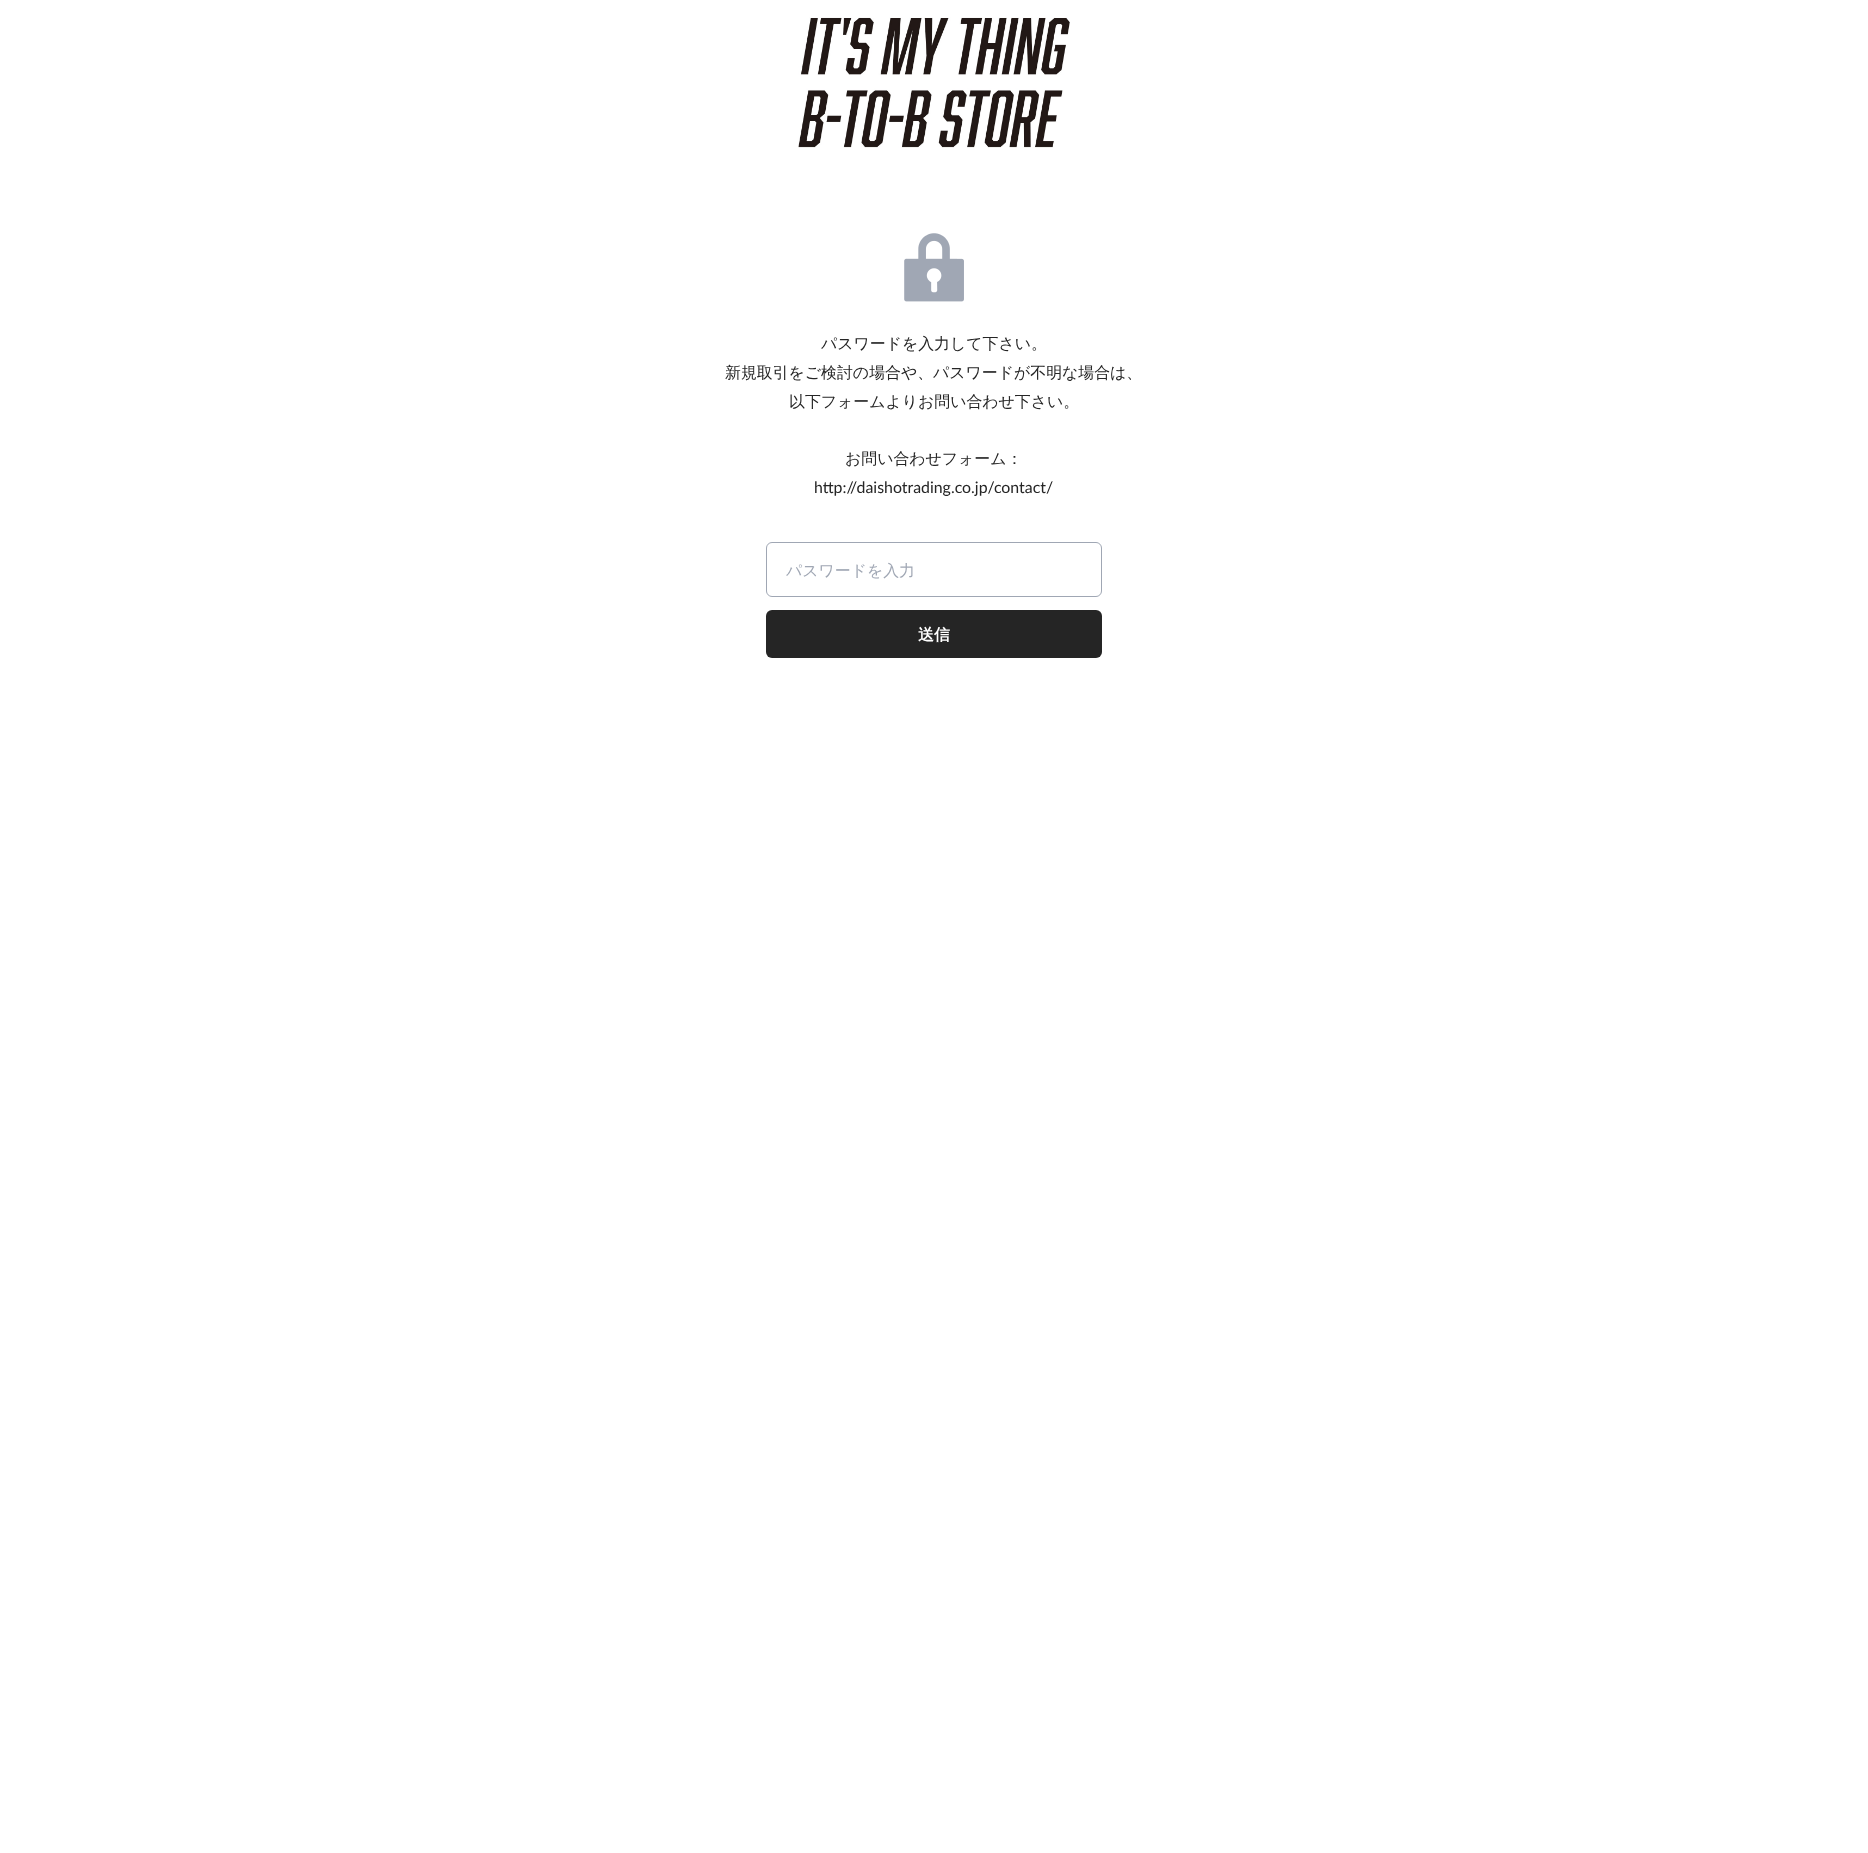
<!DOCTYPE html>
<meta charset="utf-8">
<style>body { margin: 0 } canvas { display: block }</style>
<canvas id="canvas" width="1868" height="1853"></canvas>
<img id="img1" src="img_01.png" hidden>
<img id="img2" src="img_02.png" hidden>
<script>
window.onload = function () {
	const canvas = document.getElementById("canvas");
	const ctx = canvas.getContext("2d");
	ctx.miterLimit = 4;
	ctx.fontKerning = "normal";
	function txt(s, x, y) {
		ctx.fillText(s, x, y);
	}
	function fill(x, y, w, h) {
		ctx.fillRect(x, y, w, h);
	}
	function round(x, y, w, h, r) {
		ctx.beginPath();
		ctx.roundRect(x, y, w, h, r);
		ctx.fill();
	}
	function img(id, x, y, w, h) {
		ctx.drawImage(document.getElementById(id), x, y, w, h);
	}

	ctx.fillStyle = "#FFFFFF";
	fill(0, 0, 1868, 1853);
	img("img1", 798, 17, 272, 131);
	img("img2", 904, 233, 60, 69);
	ctx.beginPath();
	ctx.roundRect(766.5, 542.5, 335, 54, 5.5);
	ctx.strokeStyle = "#A0A7B4";
	ctx.stroke();
	ctx.fillStyle = "#252525";
	round(766, 610, 336, 48, 6);
	ctx.font = "500 15.9px WenQuanYi Zen Hei";
	txt("パスワードを入力して下さい。", 821, 349);
	txt("新規取引をご検討の場合や、パスワードが不明な場合は、", 725, 378);
	txt("以下フォームよりお問い合わせ下さい。", 789, 407);
	txt("お問い合わせフォーム：", 845, 464);
	ctx.font = "15.9px Lato";
	txt("http://daishotrading.co.jp/contact/", 814, 493);
	ctx.font = "500 15.9px WenQuanYi Zen Hei";
	ctx.fillStyle = "#A0A7B4";
	txt("パスワードを入力", 786, 576);
	ctx.font = "bold 15.9px WenQuanYi Zen Hei";
	ctx.fillStyle = "#FFFFFF";
	txt("送信", 918, 640);
};
</script>
